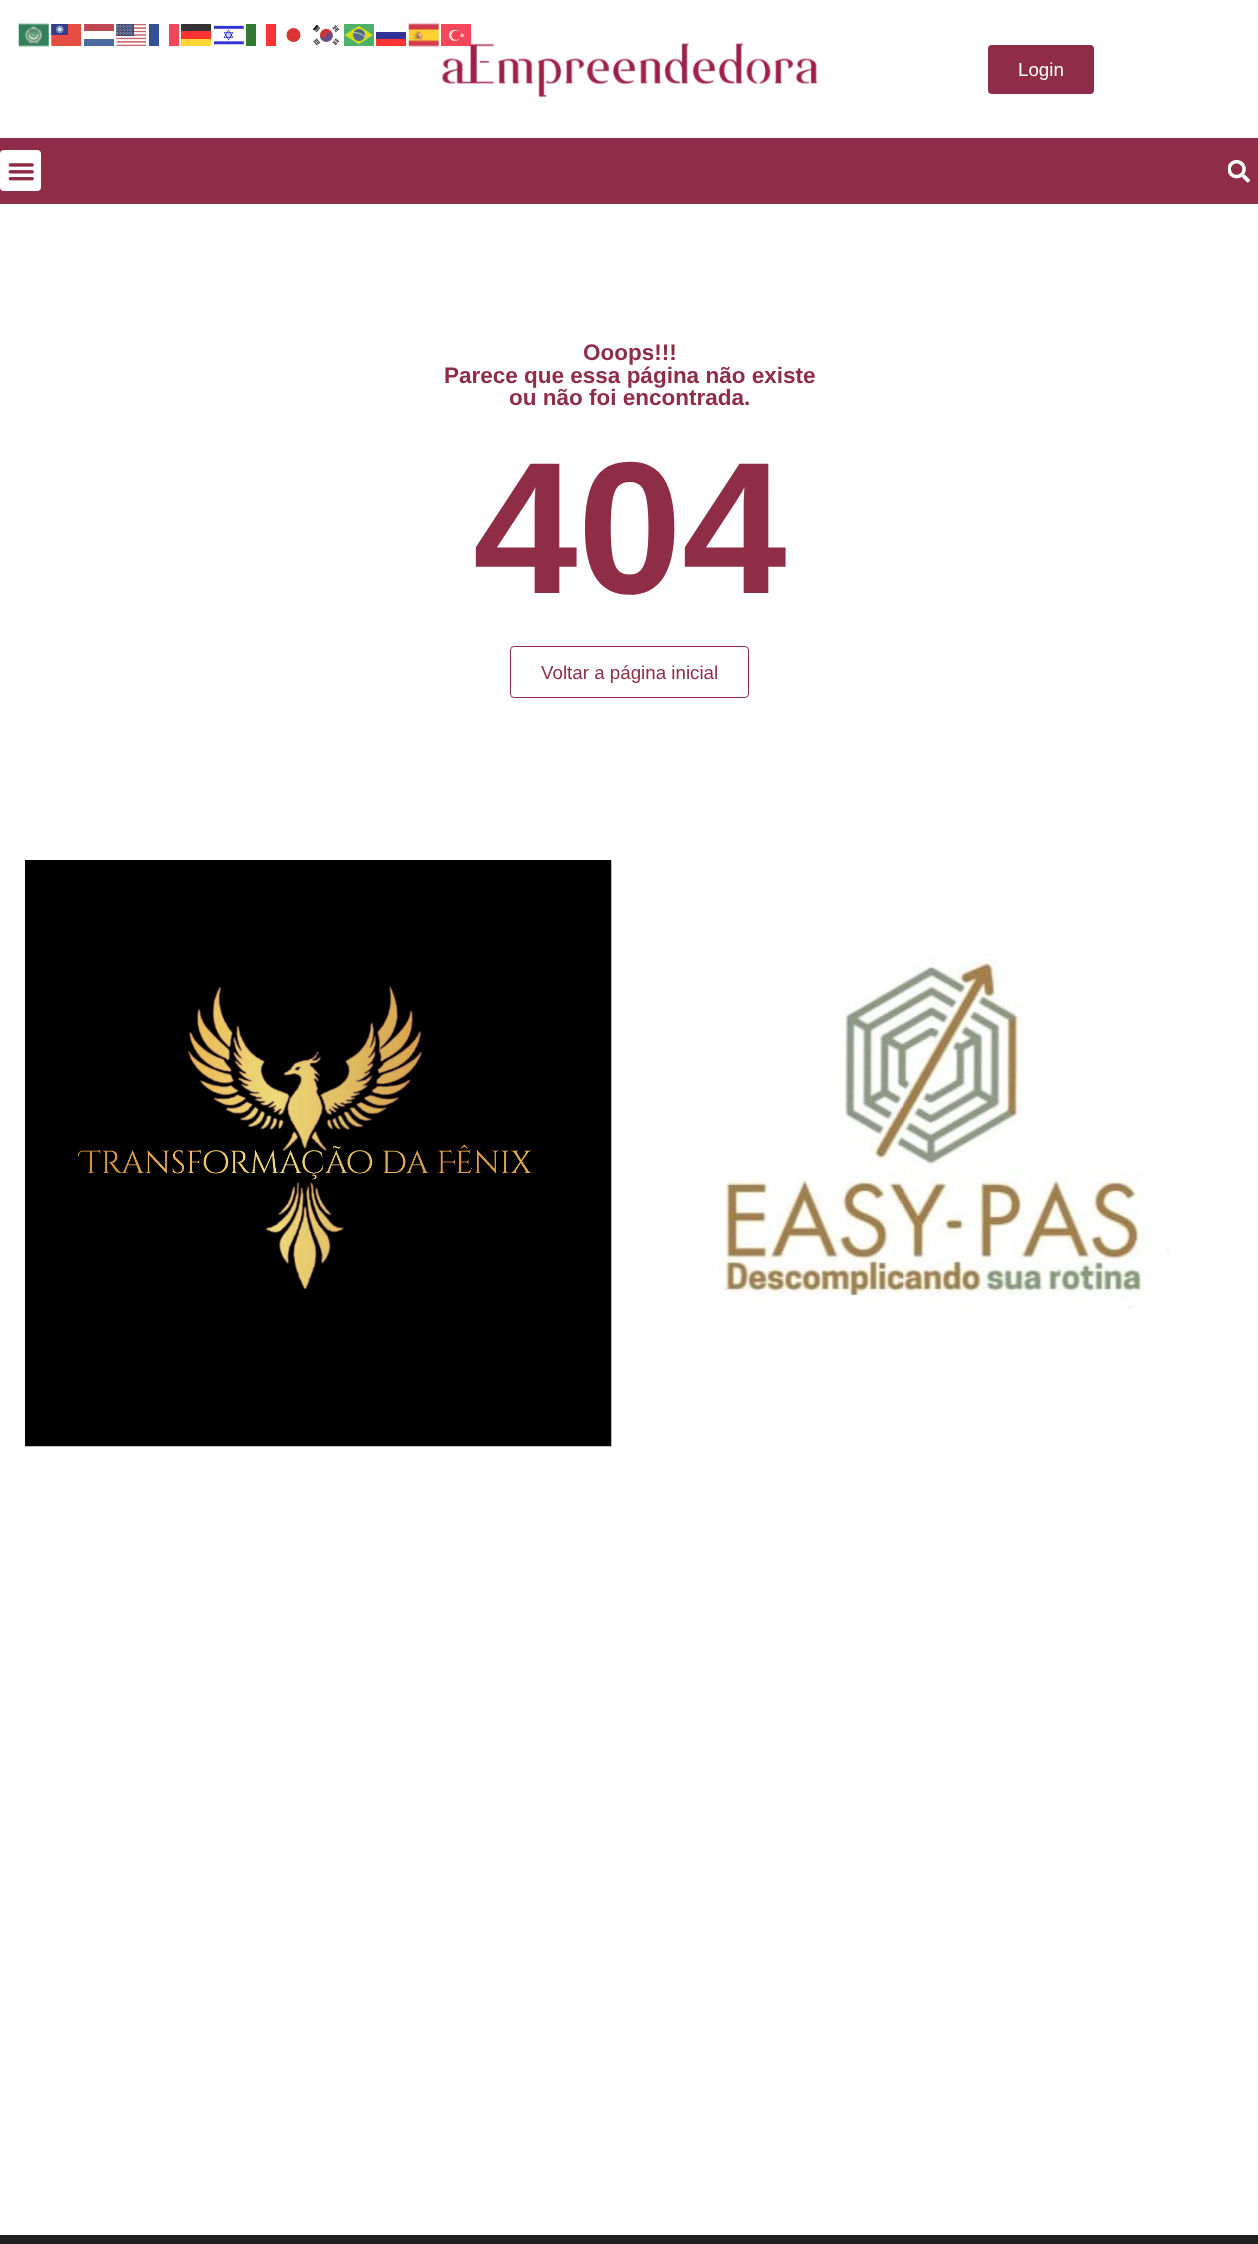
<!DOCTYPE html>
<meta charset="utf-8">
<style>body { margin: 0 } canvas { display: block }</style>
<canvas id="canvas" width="1258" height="2244"></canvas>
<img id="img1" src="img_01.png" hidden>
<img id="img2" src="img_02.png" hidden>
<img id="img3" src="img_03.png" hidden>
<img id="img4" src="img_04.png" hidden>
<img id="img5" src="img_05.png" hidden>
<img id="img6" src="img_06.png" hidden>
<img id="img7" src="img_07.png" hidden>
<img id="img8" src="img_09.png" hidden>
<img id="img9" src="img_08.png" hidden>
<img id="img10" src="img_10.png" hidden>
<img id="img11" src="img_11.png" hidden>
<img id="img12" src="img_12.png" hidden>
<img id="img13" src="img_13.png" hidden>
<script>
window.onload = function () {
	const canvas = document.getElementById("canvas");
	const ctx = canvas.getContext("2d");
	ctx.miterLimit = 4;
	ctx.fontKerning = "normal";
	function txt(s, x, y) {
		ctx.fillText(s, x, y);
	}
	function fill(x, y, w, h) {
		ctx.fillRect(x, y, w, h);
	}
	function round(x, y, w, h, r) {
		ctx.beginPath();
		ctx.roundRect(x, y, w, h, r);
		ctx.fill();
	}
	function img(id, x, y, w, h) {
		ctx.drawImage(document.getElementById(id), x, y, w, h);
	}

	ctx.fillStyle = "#FFFFFF";
	fill(0, 0, 1258, 2244);
	img("img1", 18, 23, 31, 24);
	img("img2", 51, 24, 30, 22);
	ctx.fillStyle = "#BE4953";
	fill(84, 24, 30, 7);
	img("img3", 116, 24, 30, 22);
	ctx.fillStyle = "#335199";
	fill(149, 24, 10, 22);
	ctx.fillStyle = "#F54659";
	fill(169, 24, 10, 22);
	ctx.fillStyle = "#333333";
	fill(181, 24, 30, 7);
	img("img4", 214, 25, 30, 20);
	ctx.fillStyle = "#337933";
	fill(246, 24, 10, 22);
	ctx.fillStyle = "#FD3333";
	fill(266, 24, 10, 22);
	ctx.fillStyle = "#DC3333";
	ctx.beginPath();
	ctx.arc(293.5, 35, 7, 0, Math.PI * 2);
	ctx.fill();
	img("img5", 313, 25, 27, 21);
	img("img6", 344, 24, 30, 22);
	img("img7", 408, 23, 31, 24);
	img("img8", 441, 43, 377, 55);
	img("img9", 441, 24, 30, 22);
	ctx.fillStyle = "#FF3333";
	fill(181, 31, 30, 8);
	ctx.fillStyle = "#343498";
	fill(376, 32, 30, 7);
	ctx.fillStyle = "#4D6BA2";
	fill(84, 39, 30, 7);
	ctx.fillStyle = "#FFD633";
	fill(181, 39, 30, 7);
	ctx.fillStyle = "#FE3434";
	fill(376, 39, 30, 7);
	ctx.fillStyle = "#8E2D45";
	round(988, 45, 106, 49, 4);
	fill(0, 138, 1258, 66);
	ctx.fillStyle = "#FFFFFF";
	round(0, 150, 41, 41, 4);
	img("img10", 8, 163, 26, 18);
	img("img11", 1228, 160, 22, 23);
	ctx.beginPath();
	ctx.roundRect(510.5, 646.5, 238, 51, 3.5);
	ctx.strokeStyle = "#8E2D45";
	ctx.stroke();
	img("img12", 25, 860, 587, 587);
	img("img13", 718, 953, 451, 356);
	ctx.fillStyle = "#202020";
	fill(0, 2235, 1258, 9);
	ctx.font = "18.75px Liberation Sans";
	ctx.fillStyle = "#FFFFFF";
	txt("Login", 1018, 76);
	ctx.font = "bold 22.5px Liberation Sans";
	ctx.fillStyle = "#8E2D45";
	txt("Ooops!!!", 583, 360);
	txt("Parece que essa página não existe", 444, 383);
	txt("ou não foi encontrada.", 509, 405);
	ctx.font = "bold 188px Liberation Sans";
	txt("404", 473, 593);
	ctx.font = "18.75px Liberation Sans";
	txt("Voltar a página inicial", 541, 679);
};
</script>
